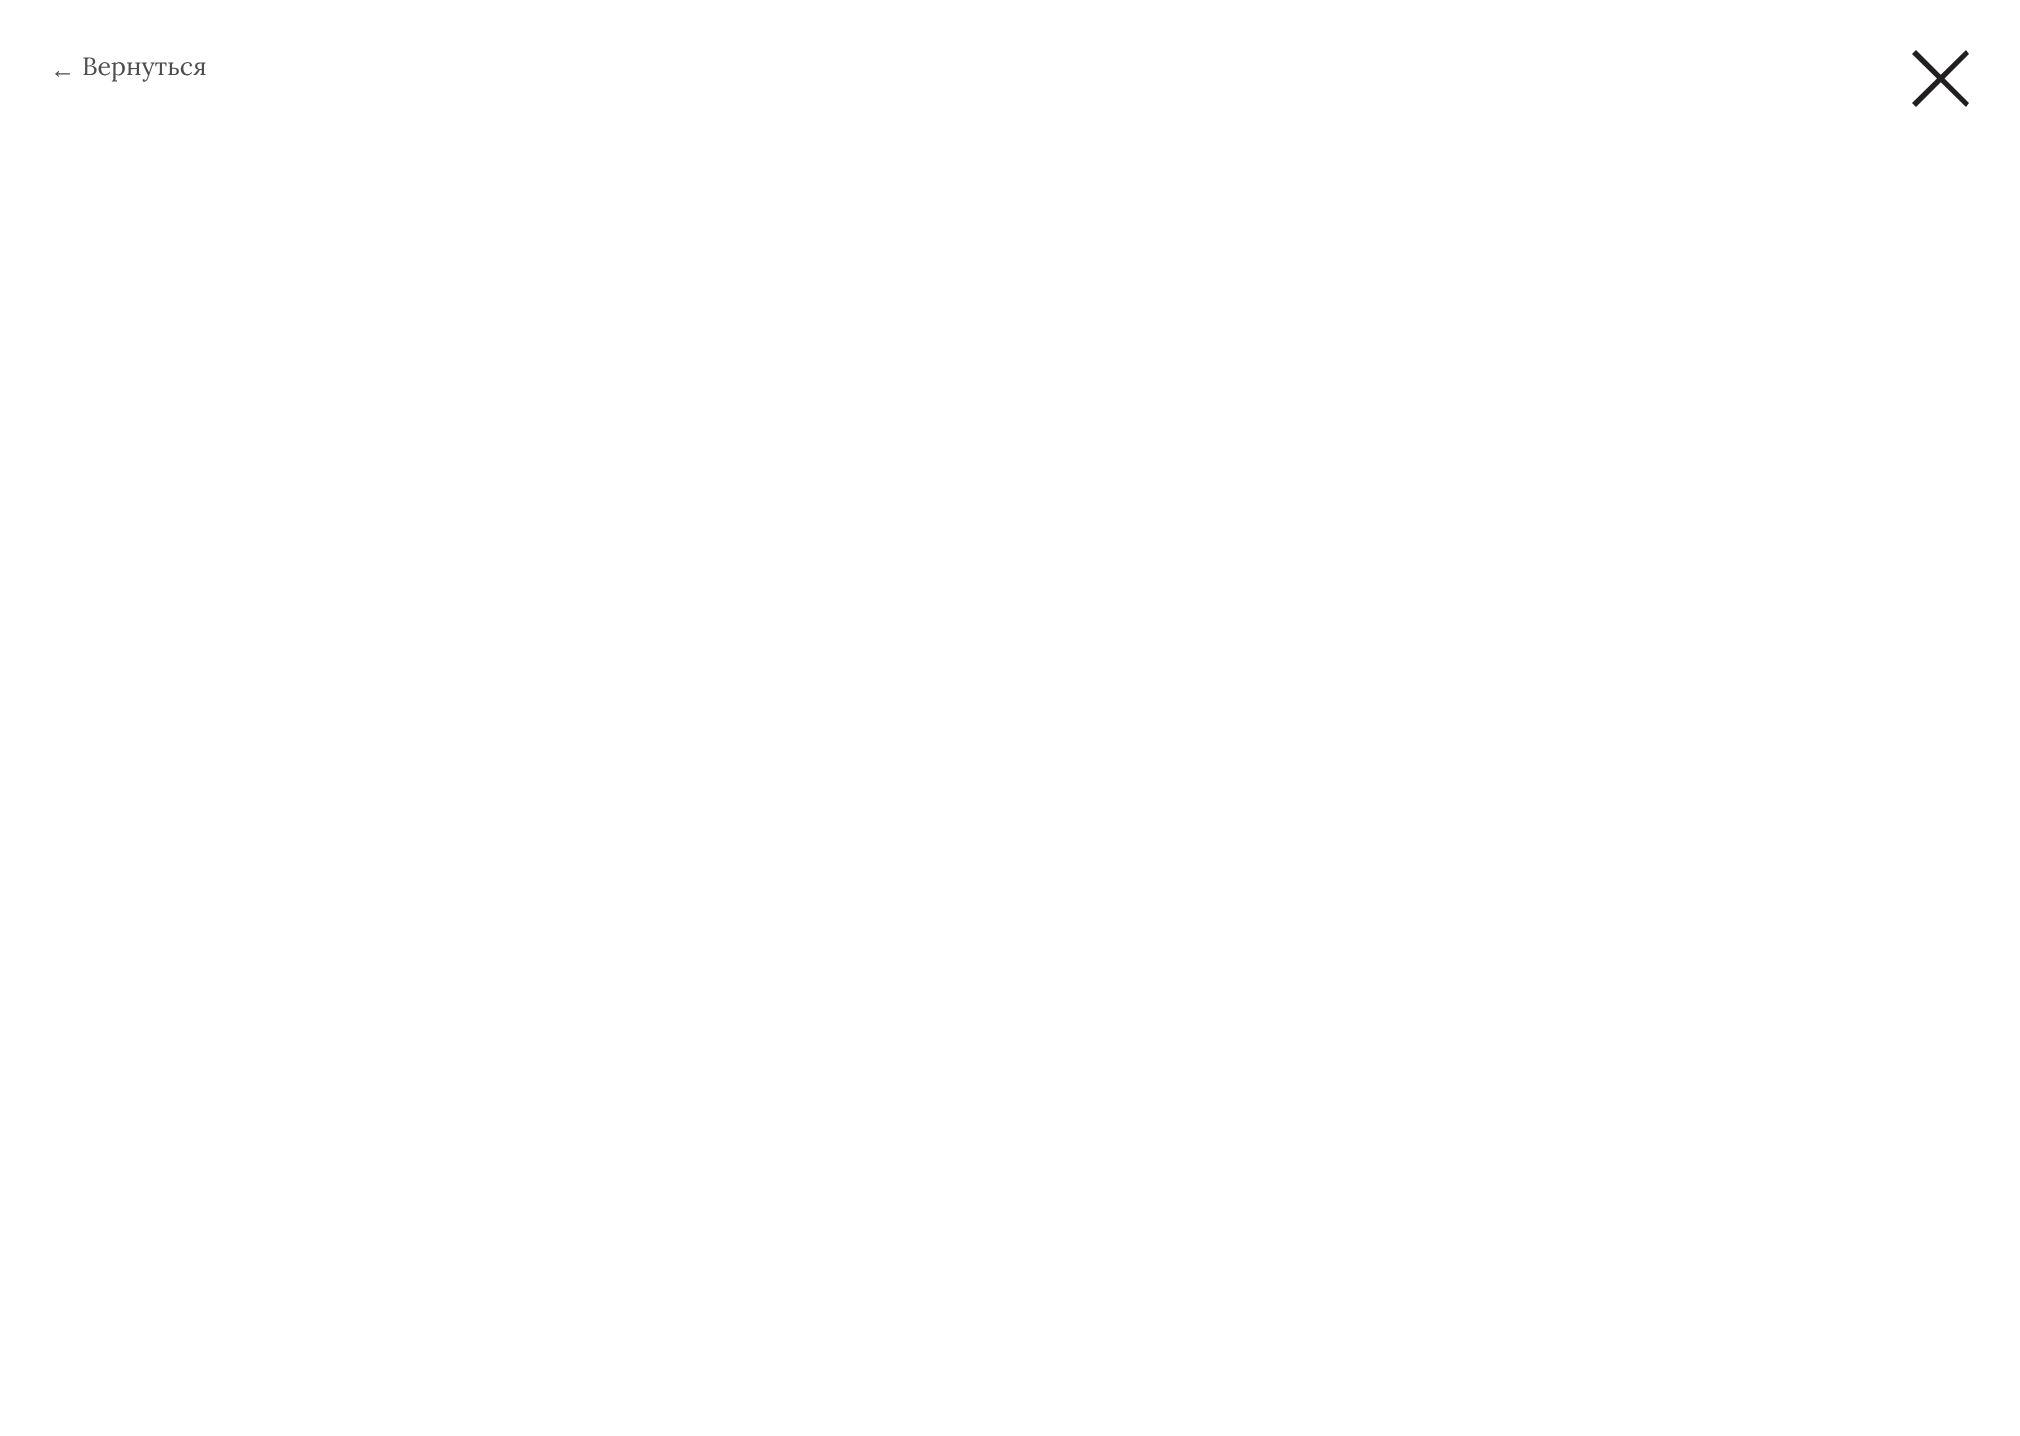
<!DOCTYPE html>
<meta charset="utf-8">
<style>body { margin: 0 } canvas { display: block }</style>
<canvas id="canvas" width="2020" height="1436"></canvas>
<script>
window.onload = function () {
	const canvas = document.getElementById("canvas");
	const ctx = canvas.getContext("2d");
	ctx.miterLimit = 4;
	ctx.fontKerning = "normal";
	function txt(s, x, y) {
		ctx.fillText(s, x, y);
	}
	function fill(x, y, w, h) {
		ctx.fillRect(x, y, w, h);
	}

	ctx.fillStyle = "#FFFFFF";
	fill(0, 0, 2020, 1436);
	ctx.fillStyle = "#231F20";
	ctx.beginPath();
	ctx.moveTo(1912, 54);
	ctx.lineTo(1916, 50);
	ctx.lineTo(1969, 103);
	ctx.lineTo(1966, 107);
	ctx.closePath();
	ctx.fill("evenodd");
	ctx.beginPath();
	ctx.moveTo(1966, 50);
	ctx.lineTo(1969, 54);
	ctx.lineTo(1916, 107);
	ctx.lineTo(1912, 103);
	ctx.closePath();
	ctx.fill("evenodd");
	ctx.font = "25px Liberation Sans";
	ctx.fillStyle = "#4F4C4D";
	txt("←", 50, 78);
	ctx.font = "25px Lora";
	txt("Вернуться", 82, 75);
};
</script>
